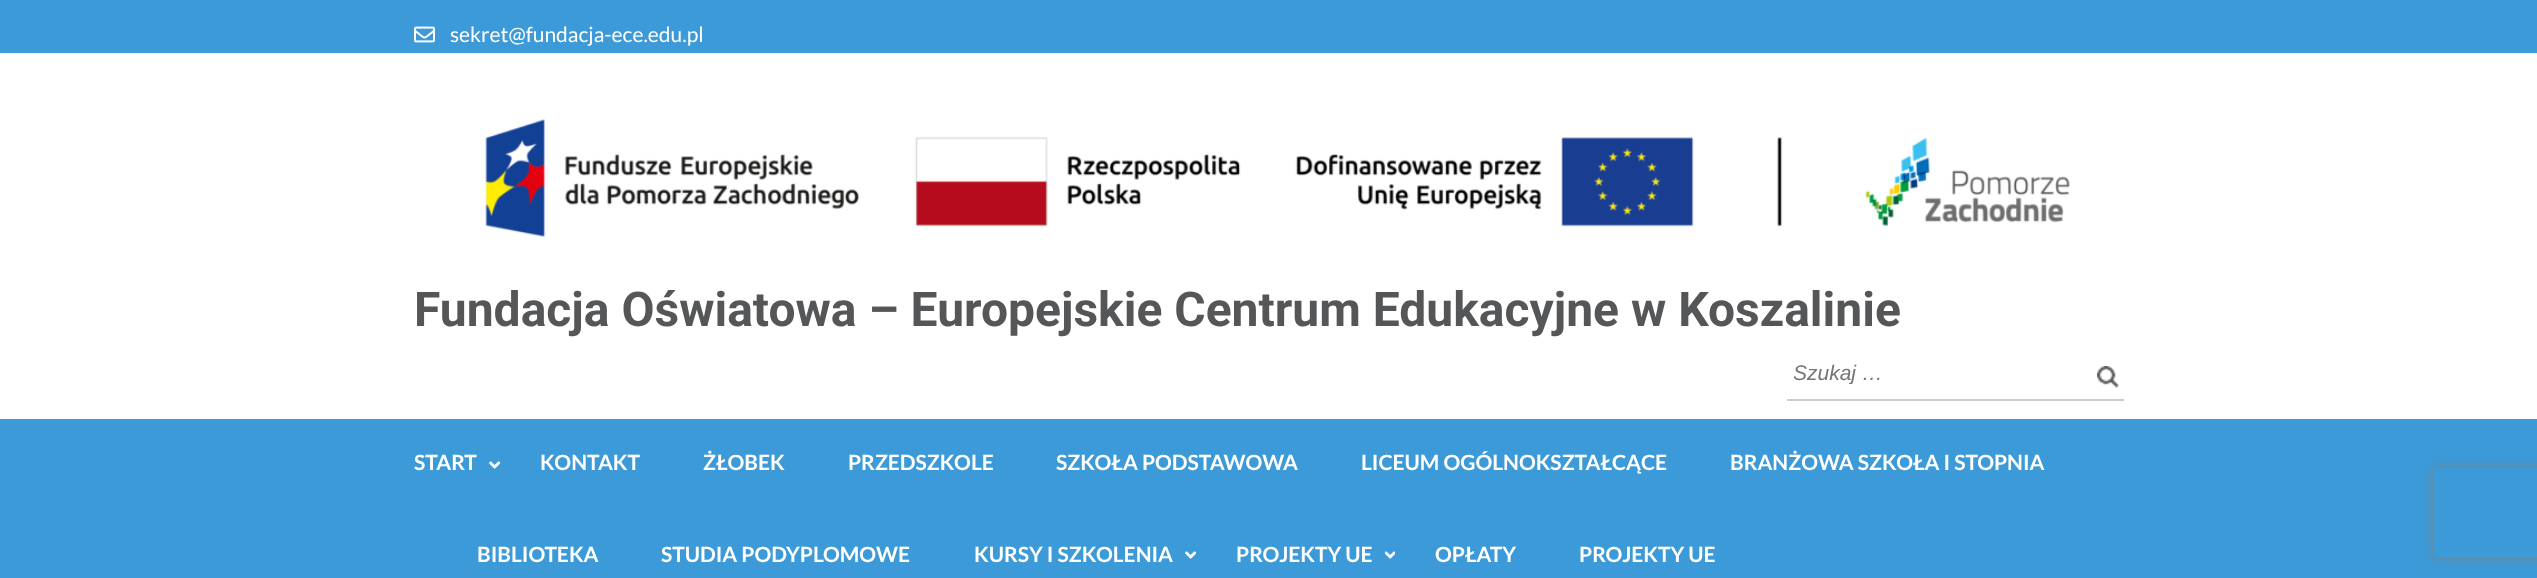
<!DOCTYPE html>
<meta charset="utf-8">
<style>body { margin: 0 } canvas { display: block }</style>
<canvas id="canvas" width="2537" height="578"></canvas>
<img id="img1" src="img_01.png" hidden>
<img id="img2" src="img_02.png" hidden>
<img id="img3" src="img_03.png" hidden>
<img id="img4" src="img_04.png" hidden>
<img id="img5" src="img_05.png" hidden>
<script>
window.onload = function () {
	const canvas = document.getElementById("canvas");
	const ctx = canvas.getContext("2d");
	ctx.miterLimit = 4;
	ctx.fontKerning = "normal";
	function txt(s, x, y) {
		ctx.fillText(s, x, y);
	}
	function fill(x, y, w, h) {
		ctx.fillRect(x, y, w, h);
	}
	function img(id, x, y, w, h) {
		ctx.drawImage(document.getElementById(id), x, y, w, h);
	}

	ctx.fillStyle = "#FFFFFF";
	fill(0, 0, 2537, 578);
	ctx.fillStyle = "#3B9AD7";
	fill(0, 0, 2537, 53);
	img("img1", 414, 26, 21, 17);
	img("img2", 485, 119, 1585, 118);
	ctx.fillStyle = "#CCCCCC";
	fill(1787, 399, 337, 2);
	img("img3", 2097, 366, 22, 22);
	ctx.fillStyle = "#3B9AD7";
	fill(0, 419, 2537, 159);
	img("img4", 489, 461, 11, 8);
	img("img4", 1185, 551, 11, 8);
	img("img5", 1385, 551, 10, 8);
	ctx.save();
	ctx.beginPath();
	ctx.moveTo(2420, 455);
	ctx.lineTo(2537, 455);
	ctx.lineTo(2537, 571);
	ctx.lineTo(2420, 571);
	ctx.closePath();
	ctx.moveTo(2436, 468);
	ctx.lineTo(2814, 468);
	ctx.bezierCurveTo(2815.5, 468, 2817, 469.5, 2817, 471);
	ctx.lineTo(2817, 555);
	ctx.bezierCurveTo(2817, 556.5, 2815.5, 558, 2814, 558);
	ctx.lineTo(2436, 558);
	ctx.bezierCurveTo(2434.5, 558, 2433, 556.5, 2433, 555);
	ctx.lineTo(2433, 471);
	ctx.bezierCurveTo(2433, 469.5, 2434.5, 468, 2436, 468);
	ctx.closePath();
	ctx.clip("evenodd");
	ctx.fillStyle = "#808080";
	ctx.filter = "blur(4px)";
	ctx.beginPath();
	ctx.roundRect(2433, 468, 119, 90, 3);
	ctx.fill();
	ctx.filter = "none";
	ctx.restore();
	ctx.font = "21px Lato";
	ctx.fillStyle = "#FFFFFF";
	txt("sekret@fundacja-ece.edu.pl", 450, 42);
	ctx.font = "bold 48px Roboto";
	ctx.fillStyle = "#555658";
	txt("Fundacja Oświatowa – Europejskie Centrum Edukacyjne w Koszalinie", 414, 326);
	ctx.save();
	ctx.beginPath();
	ctx.rect(1794, 360, 267, 24);
	ctx.clip();
	ctx.font = "italic 21px Liberation Sans";
	ctx.fillStyle = "#757575";
	txt("Szukaj …", 1793, 380);
	ctx.restore();
	ctx.font = "bold 21px Lato";
	ctx.fillStyle = "#FFFFFF";
	txt("START", 414, 470);
	txt("KONTAKT", 540, 470);
	txt("ŻŁOBEK", 703, 470);
	txt("PRZEDSZKOLE", 848, 470);
	txt("SZKOŁA PODSTAWOWA", 1056, 470);
	txt("LICEUM OGÓLNOKSZTAŁCĄCE", 1361, 470);
	txt("BRANŻOWA SZKOŁA I STOPNIA", 1730, 470);
	txt("BIBLIOTEKA", 477, 562);
	txt("STUDIA PODYPLOMOWE", 661, 562);
	txt("KURSY I SZKOLENIA", 974, 562);
	txt("PROJEKTY UE", 1236, 562);
	txt("OPŁATY", 1435, 562);
	txt("PROJEKTY UE", 1579, 562);
};
</script>
